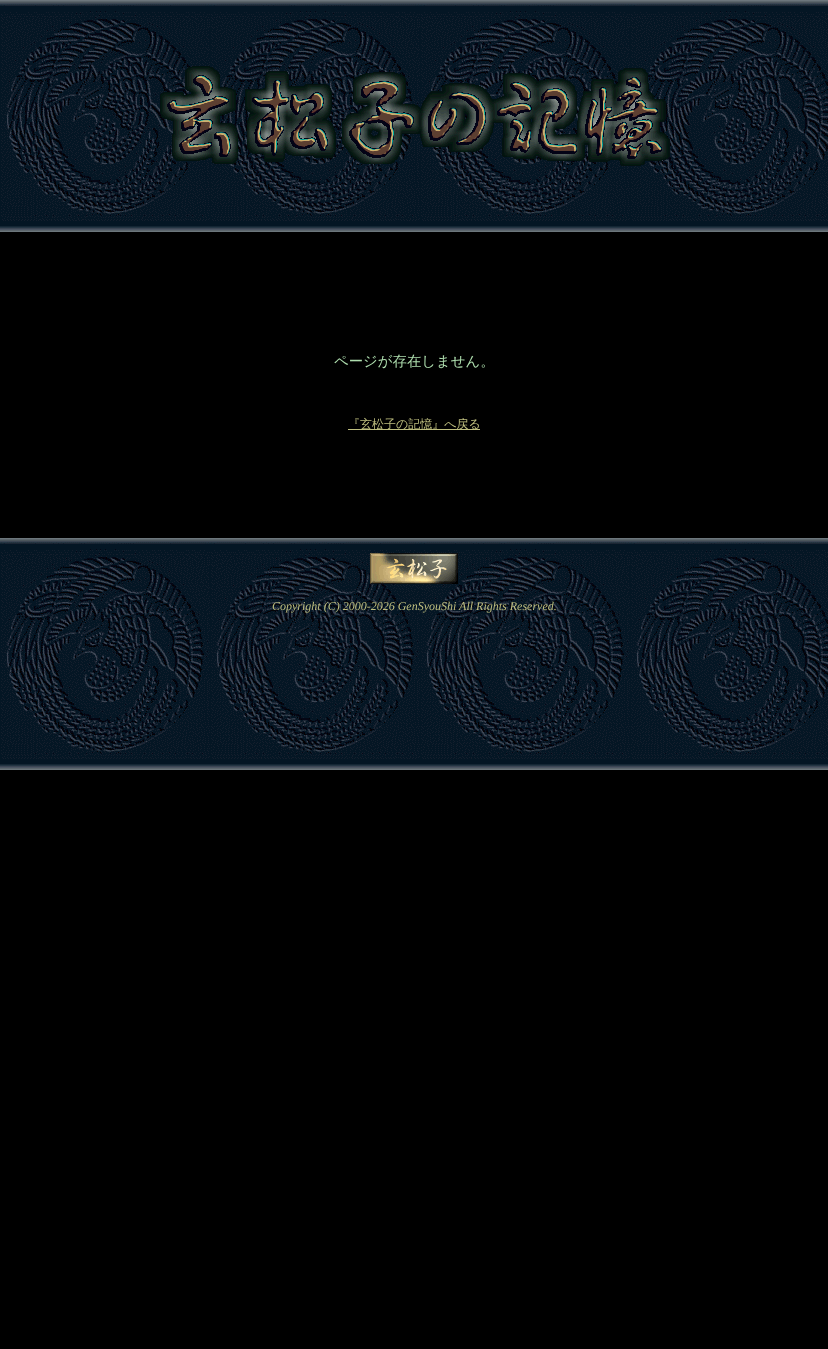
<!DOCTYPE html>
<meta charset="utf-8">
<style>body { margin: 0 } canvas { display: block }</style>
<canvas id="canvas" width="828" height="1349"></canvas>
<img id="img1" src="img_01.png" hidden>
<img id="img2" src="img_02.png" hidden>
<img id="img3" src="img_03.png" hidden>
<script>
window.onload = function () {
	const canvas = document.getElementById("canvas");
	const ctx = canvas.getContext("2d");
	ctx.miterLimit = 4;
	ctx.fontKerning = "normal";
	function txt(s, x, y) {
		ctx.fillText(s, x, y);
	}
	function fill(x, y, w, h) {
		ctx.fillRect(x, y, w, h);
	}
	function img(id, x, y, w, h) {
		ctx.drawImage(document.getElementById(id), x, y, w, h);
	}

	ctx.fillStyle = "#000000";
	fill(0, 0, 828, 1349);
	img("img1", 0, 0, 828, 232);
	img("img2", 160, 66, 510, 100);
	ctx.fillStyle = "#BFBF7F";
	fill(348, 429, 132, 1);
	img("img1", 0, 538, 828, 232);
	img("img3", 370, 553, 88, 31);
	ctx.font = "500 14.4px WenQuanYi Zen Hei";
	ctx.fillStyle = "#AFDFAF";
	txt("ページが存在しません。", 334, 366);
	ctx.font = "500 12px WenQuanYi Zen Hei";
	ctx.fillStyle = "#BFBF7F";
	txt("『玄松子の記憶』へ戻る", 348, 428);
	ctx.font = "italic 12px Liberation Serif";
	txt("Copyright (C) 2000-2026 GenSyouShi All Rights Reserved.", 272, 610);
};
</script>
